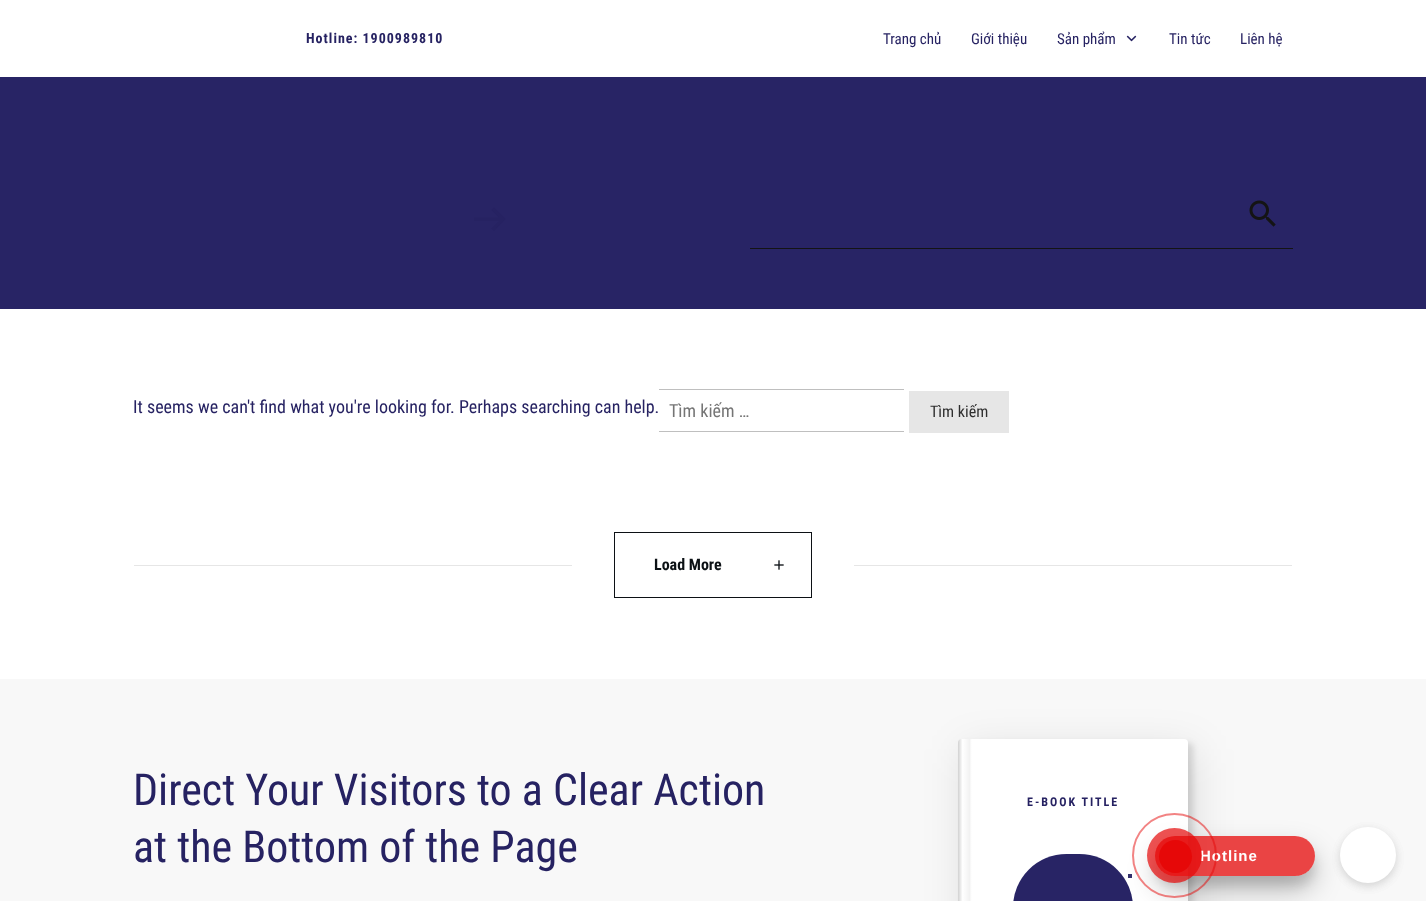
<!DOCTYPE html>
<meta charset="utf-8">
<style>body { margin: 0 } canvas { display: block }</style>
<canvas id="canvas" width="1426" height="901"></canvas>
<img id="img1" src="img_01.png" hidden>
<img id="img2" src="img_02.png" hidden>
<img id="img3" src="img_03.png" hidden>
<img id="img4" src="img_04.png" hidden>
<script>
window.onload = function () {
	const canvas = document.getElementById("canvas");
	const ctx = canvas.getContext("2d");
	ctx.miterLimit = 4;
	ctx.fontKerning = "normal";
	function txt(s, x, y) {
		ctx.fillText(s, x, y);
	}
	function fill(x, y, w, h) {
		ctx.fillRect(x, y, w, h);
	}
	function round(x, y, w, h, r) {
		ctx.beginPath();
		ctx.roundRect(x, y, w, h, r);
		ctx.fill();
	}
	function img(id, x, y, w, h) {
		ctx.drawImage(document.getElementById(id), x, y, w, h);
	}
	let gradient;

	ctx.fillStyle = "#FFFFFF";
	fill(0, 0, 1426, 901);
	img("img1", 1126, 35, 11, 7);
	ctx.fillStyle = "#282465";
	fill(0, 77, 1426, 232);
	ctx.fillStyle = "#262262";
	ctx.beginPath();
	ctx.moveTo(474, 221);
	ctx.lineTo(474, 217.5);
	ctx.lineTo(499, 217.5);
	ctx.lineTo(491.5, 210);
	ctx.lineTo(494, 207.5);
	ctx.lineTo(505.5, 219);
	ctx.lineTo(494, 231);
	ctx.lineTo(491.5, 228.5);
	ctx.lineTo(499, 221);
	ctx.closePath();
	ctx.fill();
	ctx.fillStyle = "#141414";
	fill(750, 248, 543, 1);
	img("img2", 1249, 200, 27, 27);
	ctx.fillStyle = "#BFBFBF";
	fill(659, 389, 245, 1);
	fill(659, 431, 245, 1);
	ctx.fillStyle = "#E6E6E6";
	fill(909, 391, 100, 42);
	fill(134, 565, 438, 1);
	ctx.strokeStyle = "#0C1115";
	ctx.strokeRect(614.5, 532.5, 197, 65);
	img("img3", 774, 560, 10, 10);
	fill(854, 565, 438, 1);
	ctx.fillStyle = "#F8F8F8";
	fill(0, 679, 1426, 222);
	ctx.fillStyle = "rgba(0, 0, 0, 0.12)";
	ctx.filter = "blur(3px)";
	ctx.beginPath();
	ctx.roundRect(963, 743, 230, 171, 4);
	ctx.fill();
	ctx.filter = "none";
	ctx.fillStyle = "rgba(0, 0, 0, 0.11)";
	ctx.filter = "blur(21px)";
	ctx.beginPath();
	ctx.roundRect(964, 749, 230, 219, 4);
	ctx.fill();
	ctx.filter = "none";
	ctx.fillStyle = "#FFFFFF";
	round(958, 739, 230, 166, 4);
	gradient = ctx.createLinearGradient(958, 884, 1188, 884);
	gradient.addColorStop(0, "rgba(0, 0, 0, 0.18)");
	gradient.addColorStop(0.02, "rgba(0, 0, 0, 0)");
	gradient.addColorStop(0.05, "rgba(0, 0, 0, 0.05)");
	gradient.addColorStop(0.06, "rgba(0, 0, 0, 0)");
	ctx.fillStyle = gradient;
	round(958, 739, 230, 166, 4);
	ctx.fillStyle = "#282465";
	round(1013, 854, 120, 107, 60);
	img("img4", 1110, 867, 3, 2);
	ctx.fillStyle = "#35316D";
	fill(1128, 874, 4, 4);
	ctx.fillStyle = "rgba(0, 0, 0, 0.08)";
	ctx.filter = "blur(5px)";
	ctx.beginPath();
	ctx.roundRect(1340, 830, 56, 56, 28);
	ctx.fill();
	ctx.filter = "none";
	ctx.filter = "blur(5px)";
	ctx.beginPath();
	ctx.roundRect(1340, 830, 56, 56, 28);
	ctx.fill();
	ctx.filter = "none";
	ctx.save();
	ctx.beginPath();
	ctx.moveTo(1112, 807);
	ctx.lineTo(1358, 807);
	ctx.lineTo(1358, 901);
	ctx.lineTo(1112, 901);
	ctx.closePath();
	ctx.moveTo(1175, 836);
	ctx.lineTo(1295, 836);
	ctx.bezierCurveTo(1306, 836, 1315, 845, 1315, 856);
	ctx.bezierCurveTo(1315, 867, 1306, 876, 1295, 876);
	ctx.lineTo(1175, 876);
	ctx.bezierCurveTo(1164, 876, 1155, 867, 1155, 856);
	ctx.bezierCurveTo(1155, 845, 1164, 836, 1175, 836);
	ctx.closePath();
	ctx.clip("evenodd");
	ctx.fillStyle = "rgba(0, 0, 0, 0.25)";
	ctx.filter = "blur(14px)";
	ctx.beginPath();
	ctx.roundRect(1155, 850, 160, 40, 20);
	ctx.fill();
	ctx.filter = "none";
	ctx.restore();
	ctx.fillStyle = "#FFFFFF";
	ctx.beginPath();
	ctx.arc(1368, 855, 25.5, 0, Math.PI * 2);
	ctx.fill();
	ctx.strokeStyle = "#FFFFFF";
	ctx.lineWidth = 5;
	ctx.stroke();
	ctx.save();
	ctx.beginPath();
	ctx.moveTo(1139, 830);
	ctx.lineTo(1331, 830);
	ctx.lineTo(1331, 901);
	ctx.lineTo(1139, 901);
	ctx.closePath();
	ctx.moveTo(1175, 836);
	ctx.lineTo(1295, 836);
	ctx.bezierCurveTo(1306, 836, 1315, 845, 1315, 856);
	ctx.bezierCurveTo(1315, 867, 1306, 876, 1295, 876);
	ctx.lineTo(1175, 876);
	ctx.bezierCurveTo(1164, 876, 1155, 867, 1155, 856);
	ctx.bezierCurveTo(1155, 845, 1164, 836, 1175, 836);
	ctx.closePath();
	ctx.clip("evenodd");
	ctx.fillStyle = "rgba(0, 0, 0, 0.1)";
	ctx.filter = "blur(5px)";
	ctx.beginPath();
	ctx.roundRect(1155, 846, 160, 40, 20);
	ctx.fill();
	ctx.filter = "none";
	ctx.restore();
	ctx.fillStyle = "rgba(230, 8, 8, 0.75)";
	round(1155, 836, 160, 40, 20);
	ctx.letterSpacing = "1px";
	ctx.font = "bold 14px Roboto Condensed";
	ctx.fillStyle = "#262262";
	txt("Hotline: 1900989810", 306, 43);
	ctx.letterSpacing = "0px";
	ctx.font = "15px Roboto Condensed";
	txt("Trang chủ", 883, 44);
	txt("Giới thiệu", 971, 44);
	txt("Sản phẩm", 1057, 44);
	txt("Tin tức", 1169, 44);
	txt("Liên hệ", 1240, 44);
	ctx.font = "18px Roboto Condensed";
	txt("It seems we can't find what you're looking for. Perhaps searching can help.", 133, 413);
	ctx.fillStyle = "#757575";
	txt("Tìm kiếm …", 669, 417);
	ctx.font = "16px Roboto Condensed";
	ctx.fillStyle = "#2E2E2E";
	txt("Tìm kiếm", 930, 417);
	ctx.font = "bold 16px Roboto Condensed";
	ctx.fillStyle = "#0C1115";
	txt("Load More", 654, 570);
	ctx.font = "44px Roboto Condensed";
	ctx.fillStyle = "#262262";
	txt("Direct Your Visitors to a Clear Action", 133, 805);
	txt("at the Bottom of the Page", 133, 862);
	ctx.letterSpacing = "2px";
	ctx.font = "bold 12px Roboto Condensed";
	txt("E-BOOK TITLE", 1027, 806);
	ctx.letterSpacing = "1px";
	ctx.font = "bold 15px Liberation Sans";
	ctx.fillStyle = "#FFFFFF";
	txt("Hotline", 1200, 861);
	ctx.beginPath();
	ctx.arc(1174.5, 855.5, 41.5, 0, Math.PI * 2);
	ctx.strokeStyle = "rgba(230, 8, 8, 0.5)";
	ctx.lineWidth = 2;
	ctx.stroke();
	ctx.fillStyle = "rgba(230, 8, 8, 0.7)";
	ctx.beginPath();
	ctx.arc(1174.5, 855.5, 27.5, 0, Math.PI * 2);
	ctx.fill();
	ctx.fillStyle = "#E60808";
	ctx.beginPath();
	ctx.arc(1175.5, 856.5, 16.5, 0, Math.PI * 2);
	ctx.fill();
};
</script>
